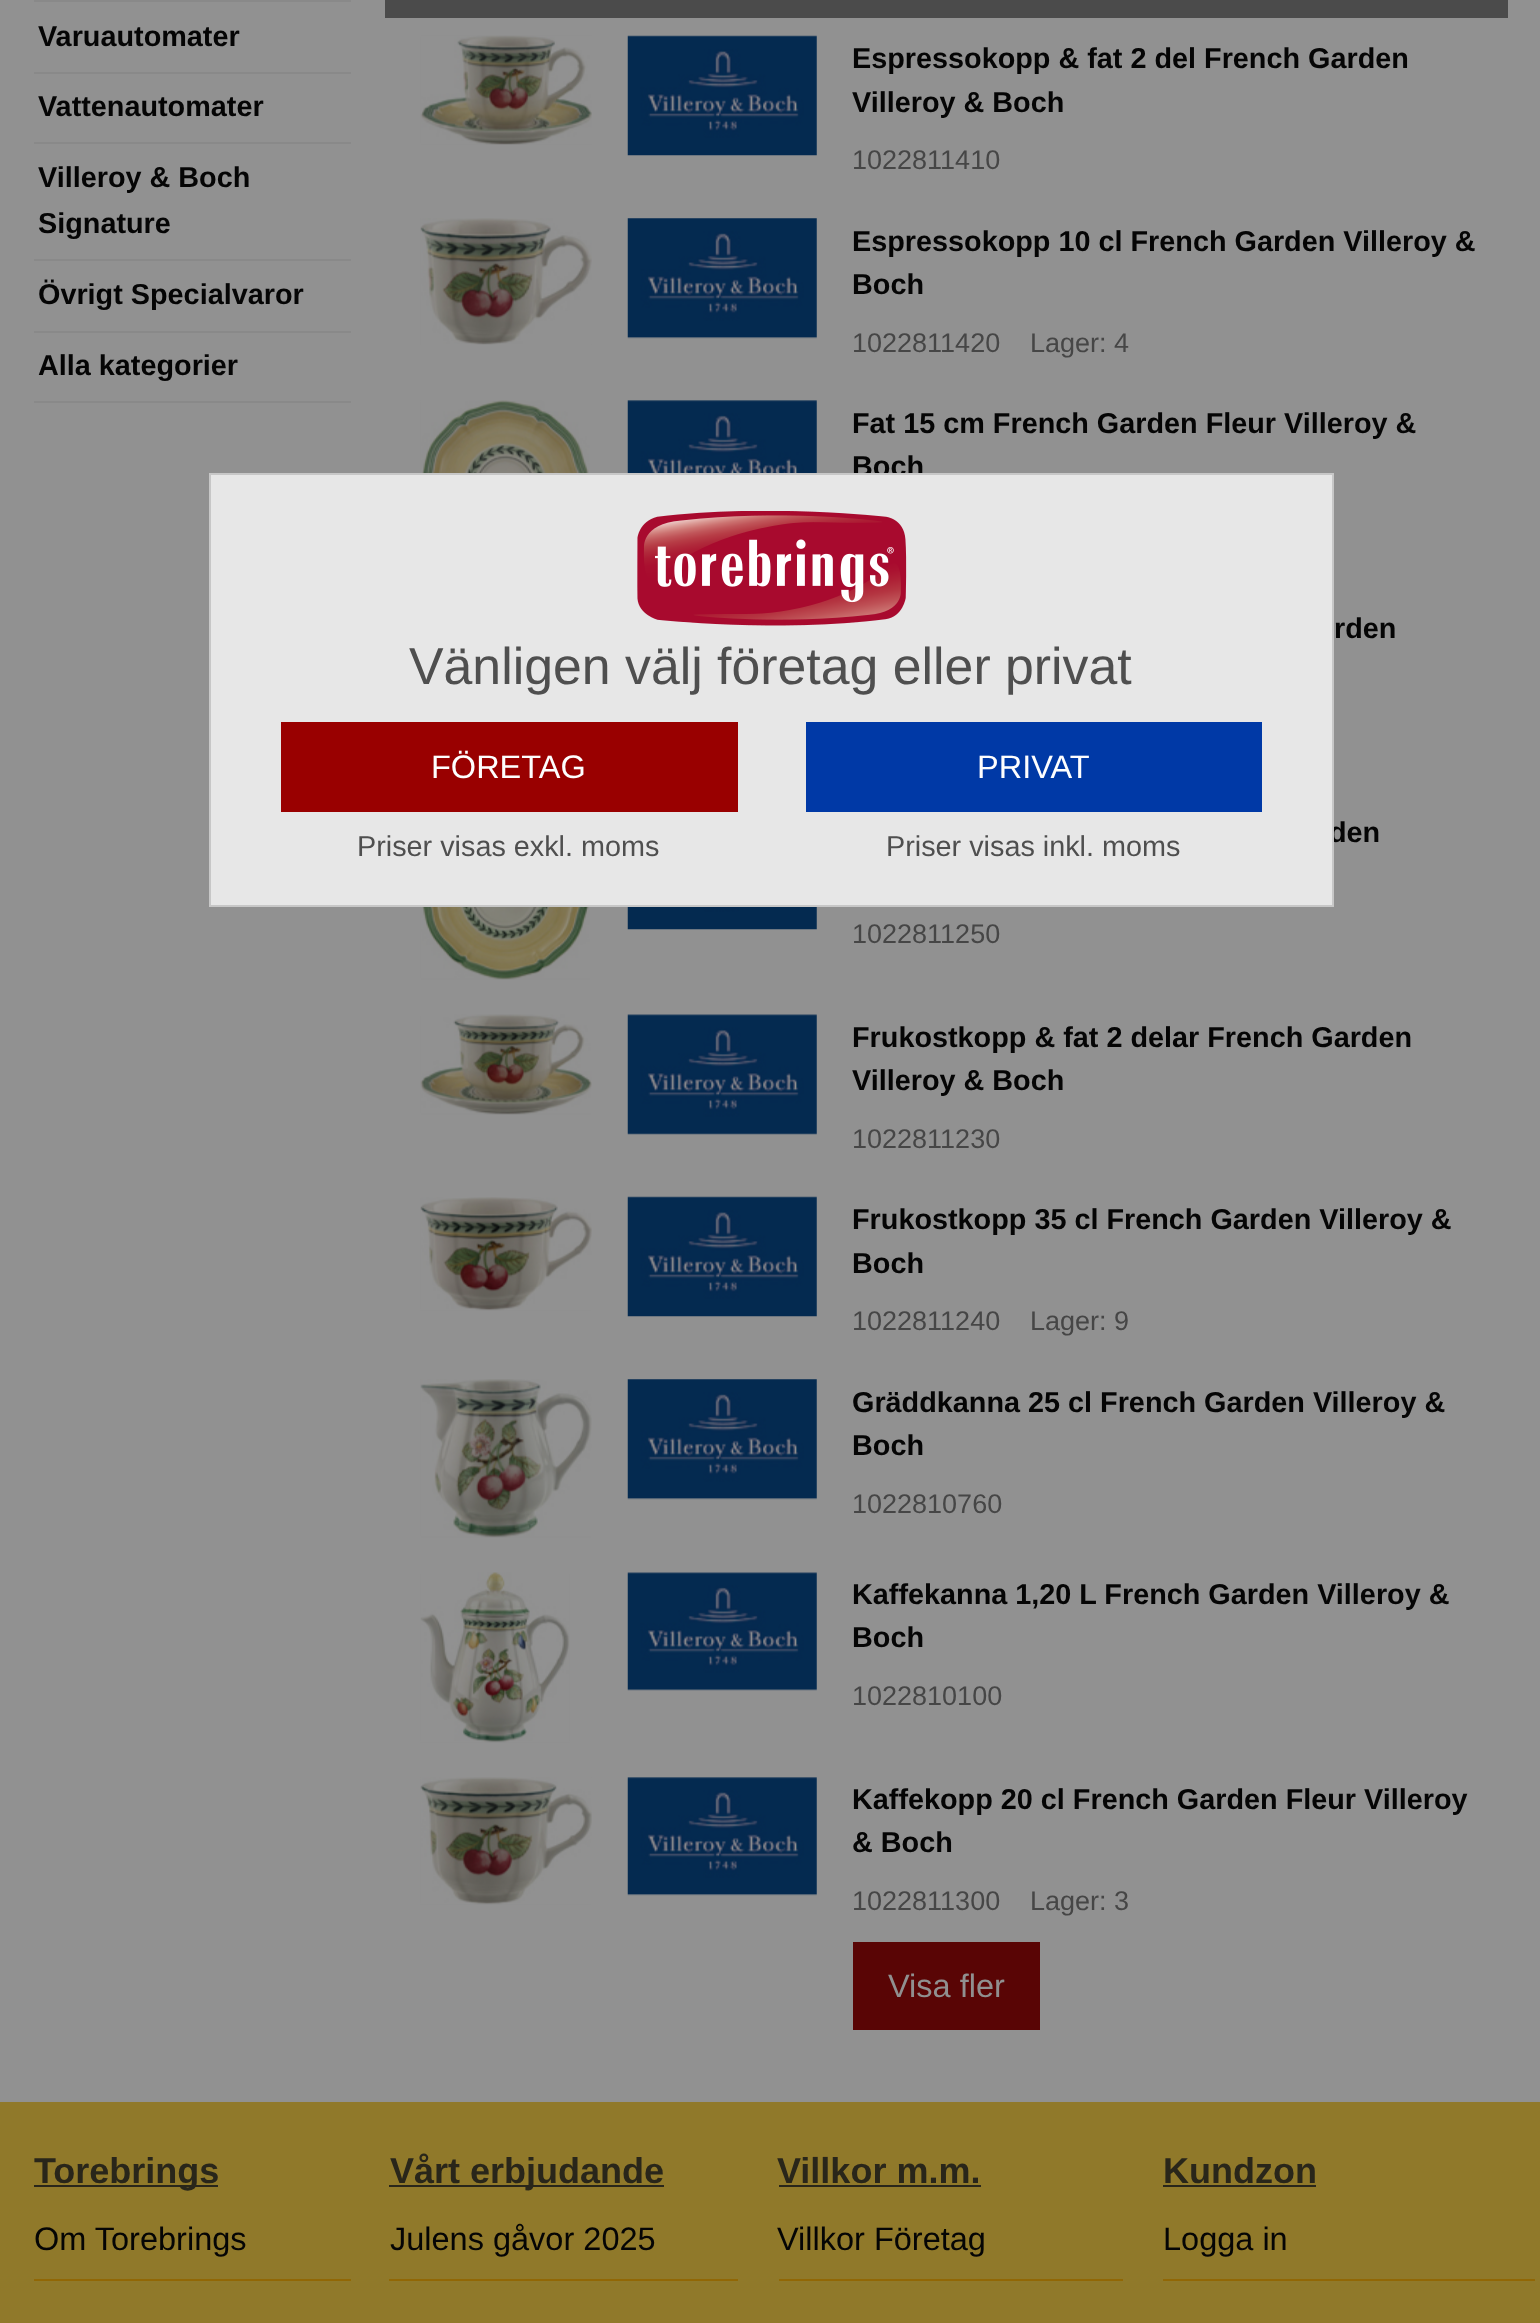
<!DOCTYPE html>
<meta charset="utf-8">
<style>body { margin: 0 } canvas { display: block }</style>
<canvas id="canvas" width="1540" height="2323"></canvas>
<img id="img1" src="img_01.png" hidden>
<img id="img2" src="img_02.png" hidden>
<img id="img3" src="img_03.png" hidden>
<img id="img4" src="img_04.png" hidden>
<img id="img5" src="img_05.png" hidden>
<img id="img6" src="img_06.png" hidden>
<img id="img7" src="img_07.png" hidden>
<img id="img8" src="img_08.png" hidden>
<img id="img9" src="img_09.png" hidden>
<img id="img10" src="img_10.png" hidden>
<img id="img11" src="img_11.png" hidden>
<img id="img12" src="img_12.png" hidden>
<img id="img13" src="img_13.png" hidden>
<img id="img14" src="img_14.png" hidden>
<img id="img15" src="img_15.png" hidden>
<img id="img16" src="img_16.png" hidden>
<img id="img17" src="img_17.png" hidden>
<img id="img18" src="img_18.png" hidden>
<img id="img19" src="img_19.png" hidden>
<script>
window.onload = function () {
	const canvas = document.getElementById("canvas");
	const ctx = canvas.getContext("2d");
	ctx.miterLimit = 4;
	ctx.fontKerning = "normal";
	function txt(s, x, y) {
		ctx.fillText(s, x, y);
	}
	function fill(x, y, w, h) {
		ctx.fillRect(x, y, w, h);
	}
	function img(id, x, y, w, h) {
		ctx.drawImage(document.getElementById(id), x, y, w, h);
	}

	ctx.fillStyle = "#919191";
	fill(0, 0, 1540, 2323);
	ctx.fillStyle = "#898989";
	fill(34, 0, 317, 2);
	fill(34, 72, 317, 2);
	fill(34, 142, 317, 2);
	fill(34, 259, 317, 2);
	fill(34, 331, 317, 2);
	fill(34, 401, 317, 2);
	ctx.fillStyle = "#4B4B4B";
	fill(385, 0, 1123, 18);
	img("img1", 420, 35, 172, 110);
	img("img2", 627, 35, 190, 121);
	img("img3", 420, 218, 172, 127);
	img("img4", 627, 218, 190, 121);
	img("img5", 420, 400, 170, 73);
	img("img6", 627, 400, 190, 73);
	img("img7", 420, 907, 170, 73);
	img("img8", 627, 907, 190, 23);
	img("img9", 420, 1014, 172, 101);
	img("img10", 627, 1014, 190, 121);
	img("img11", 420, 1197, 172, 114);
	img("img12", 627, 1196, 190, 121);
	img("img13", 420, 1379, 172, 159);
	img("img14", 627, 1379, 190, 121);
	img("img15", 420, 1572, 150, 171);
	img("img16", 627, 1572, 190, 119);
	img("img17", 420, 1777, 172, 128);
	img("img18", 627, 1777, 190, 119);
	ctx.fillStyle = "#590505";
	fill(853, 1942, 187, 88);
	ctx.fillStyle = "#90792A";
	fill(0, 2102, 1540, 221);
	ctx.fillStyle = "#29261A";
	fill(34, 2185, 184, 2);
	ctx.fillStyle = "#916705";
	fill(34, 2279, 317, 2);
	ctx.fillStyle = "#29261A";
	fill(389, 2185, 275, 2);
	ctx.fillStyle = "#916705";
	fill(389, 2279, 349, 2);
	ctx.fillStyle = "#29261A";
	fill(779, 2185, 202, 2);
	ctx.fillStyle = "#916705";
	fill(779, 2279, 344, 2);
	ctx.fillStyle = "#29261A";
	fill(1163, 2185, 153, 2);
	ctx.fillStyle = "#916705";
	fill(1163, 2279, 372, 2);
	ctx.font = "bold 28.8px Liberation Sans";
	ctx.fillStyle = "#050505";
	txt("Varuautomater", 38, 46);
	txt("Vattenautomater", 38, 116);
	txt("Villeroy & Boch", 38, 187);
	txt("Signature", 38, 233);
	txt("Övrigt Specialvaror", 38, 304);
	txt("Alla kategorier", 38, 375);
	txt("Espressokopp & fat 2 del French Garden", 852, 68);
	txt("Villeroy & Boch", 852, 112);
	ctx.font = "27px Liberation Sans";
	ctx.fillStyle = "#464646";
	txt("1022811410", 852, 169);
	ctx.font = "bold 28.8px Liberation Sans";
	ctx.fillStyle = "#050505";
	txt("Espressokopp 10 cl French Garden Villeroy &", 852, 251);
	txt("Boch", 852, 294);
	ctx.font = "27px Liberation Sans";
	ctx.fillStyle = "#464646";
	txt("1022811420", 852, 352);
	txt("Lager: 4", 1030, 352);
	ctx.font = "bold 28.8px Liberation Sans";
	ctx.fillStyle = "#050505";
	txt("Fat 15 cm French Garden Fleur Villeroy &", 852, 433);
	txt("Boch", 852, 476);
	txt("rden", 1334, 638);
	txt("den", 1329, 842);
	ctx.font = "27px Liberation Sans";
	ctx.fillStyle = "#464646";
	txt("1022811250", 852, 943);
	ctx.font = "bold 28.8px Liberation Sans";
	ctx.fillStyle = "#050505";
	txt("Frukostkopp & fat 2 delar French Garden", 852, 1047);
	txt("Villeroy & Boch", 852, 1090);
	ctx.font = "27px Liberation Sans";
	ctx.fillStyle = "#464646";
	txt("1022811230", 852, 1148);
	ctx.font = "bold 28.8px Liberation Sans";
	ctx.fillStyle = "#050505";
	txt("Frukostkopp 35 cl French Garden Villeroy &", 852, 1229);
	txt("Boch", 852, 1273);
	ctx.font = "27px Liberation Sans";
	ctx.fillStyle = "#464646";
	txt("1022811240", 852, 1330);
	txt("Lager: 9", 1030, 1330);
	ctx.font = "bold 28.8px Liberation Sans";
	ctx.fillStyle = "#050505";
	txt("Gräddkanna 25 cl French Garden Villeroy &", 852, 1412);
	txt("Boch", 852, 1455);
	ctx.font = "27px Liberation Sans";
	ctx.fillStyle = "#464646";
	txt("1022810760", 852, 1513);
	ctx.font = "bold 28.8px Liberation Sans";
	ctx.fillStyle = "#050505";
	txt("Kaffekanna 1,20 L French Garden Villeroy &", 852, 1604);
	txt("Boch", 852, 1647);
	ctx.font = "27px Liberation Sans";
	ctx.fillStyle = "#464646";
	txt("1022810100", 852, 1705);
	ctx.font = "bold 28.8px Liberation Sans";
	ctx.fillStyle = "#050505";
	txt("Kaffekopp 20 cl French Garden Fleur Villeroy", 852, 1809);
	txt("& Boch", 852, 1852);
	ctx.font = "27px Liberation Sans";
	ctx.fillStyle = "#464646";
	txt("1022811300", 852, 1910);
	txt("Lager: 3", 1030, 1910);
	ctx.font = "32.5px Liberation Sans";
	ctx.fillStyle = "#909090";
	txt("Visa fler", 888, 1997);
	ctx.fillStyle = "#E7E7E7";
	ctx.beginPath();
	ctx.rect(210, 474, 1123, 432);
	ctx.fill();
	ctx.strokeStyle = "#C7C7C7";
	ctx.lineWidth = 2;
	ctx.stroke();
	img("img19", 637, 511, 270, 115);
	ctx.font = "51.8px Liberation Sans";
	ctx.fillStyle = "#4F4F4F";
	txt("Vänligen välj företag eller privat", 409, 684);
	ctx.fillStyle = "#990000";
	fill(281, 722, 457, 90);
	ctx.font = "32.5px Liberation Sans";
	ctx.fillStyle = "#FEFEFE";
	txt("FÖRETAG", 431, 778);
	ctx.font = "28.8px Liberation Sans";
	ctx.fillStyle = "#4F4F4F";
	txt("Priser visas exkl. moms", 357, 856);
	ctx.fillStyle = "#0039A6";
	fill(806, 722, 456, 90);
	ctx.font = "32.5px Liberation Sans";
	ctx.fillStyle = "#FEFEFE";
	txt("PRIVAT", 977, 778);
	ctx.font = "28.8px Liberation Sans";
	ctx.fillStyle = "#4F4F4F";
	txt("Priser visas inkl. moms", 886, 856);
	ctx.font = "bold 36px Liberation Sans";
	ctx.fillStyle = "#29261A";
	txt("Torebrings", 34, 2183);
	ctx.font = "32.5px Liberation Sans";
	ctx.fillStyle = "#050505";
	txt("Om Torebrings", 34, 2250);
	ctx.font = "bold 36px Liberation Sans";
	ctx.fillStyle = "#29261A";
	txt("Vårt erbjudande", 390, 2183);
	ctx.font = "32.5px Liberation Sans";
	ctx.fillStyle = "#050505";
	txt("Julens gåvor 2025", 390, 2250);
	ctx.font = "bold 36px Liberation Sans";
	ctx.fillStyle = "#29261A";
	txt("Villkor m.m.", 777, 2183);
	ctx.font = "32.5px Liberation Sans";
	ctx.fillStyle = "#050505";
	txt("Villkor Företag", 777, 2250);
	ctx.font = "bold 36px Liberation Sans";
	ctx.fillStyle = "#29261A";
	txt("Kundzon", 1163, 2183);
	ctx.font = "32.5px Liberation Sans";
	ctx.fillStyle = "#050505";
	txt("Logga in", 1163, 2250);
};
</script>
